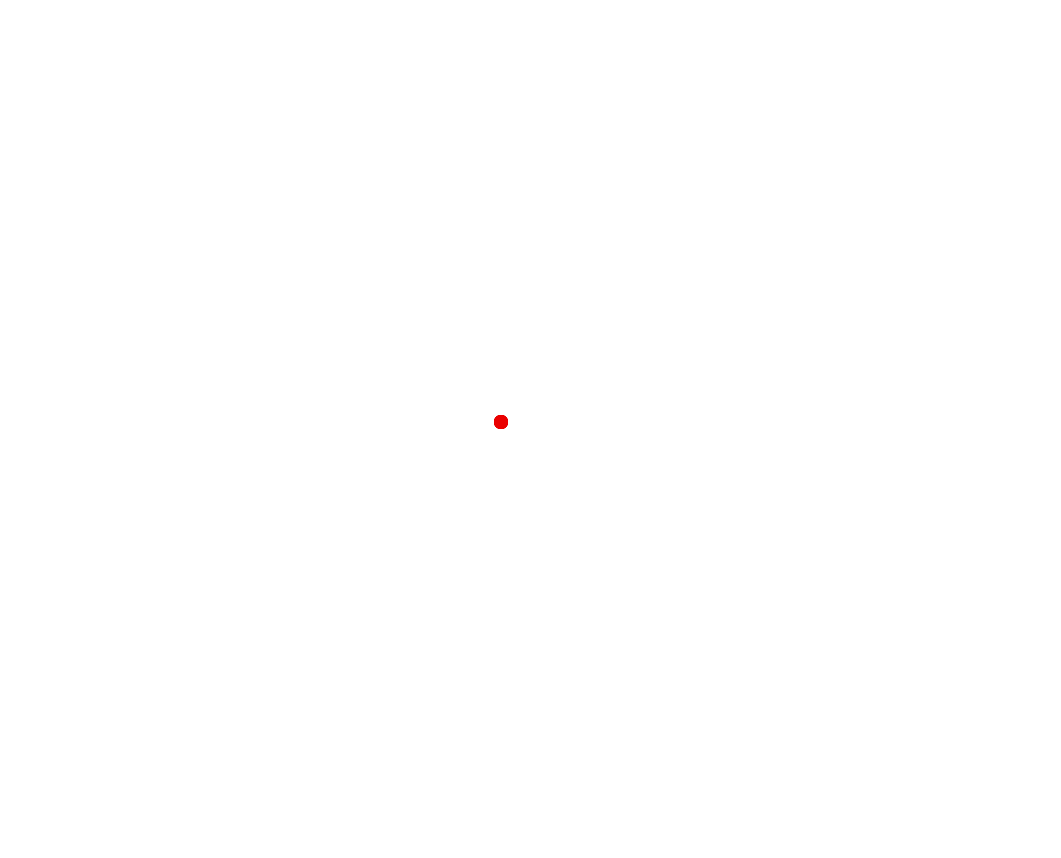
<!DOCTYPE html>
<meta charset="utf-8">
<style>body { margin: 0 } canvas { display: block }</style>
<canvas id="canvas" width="1061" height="858"></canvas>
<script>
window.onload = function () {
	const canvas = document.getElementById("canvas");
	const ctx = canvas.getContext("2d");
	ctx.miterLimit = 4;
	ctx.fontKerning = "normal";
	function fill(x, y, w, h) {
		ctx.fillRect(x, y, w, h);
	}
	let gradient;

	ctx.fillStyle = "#FFFFFF";
	fill(0, 0, 1061, 858);
	gradient = ctx.createRadialGradient(501, 422, 0, 501, 422, 7.5);
	gradient.addColorStop(0.9, "#EA0000");
	gradient.addColorStop(1, "#FFFFFF");
	ctx.fillStyle = gradient;
	fill(494, 415, 14, 14);
	gradient = ctx.createRadialGradient(501, 422, 0, 501, 422, 7.5);
	gradient.addColorStop(0.9, "#EA0000");
	gradient.addColorStop(1, "rgba(234, 0, 0, 0)");
	ctx.fillStyle = gradient;
	fill(494, 415, 14, 14);
	fill(494, 415, 14, 14);
	fill(494, 415, 14, 14);
};
</script>
